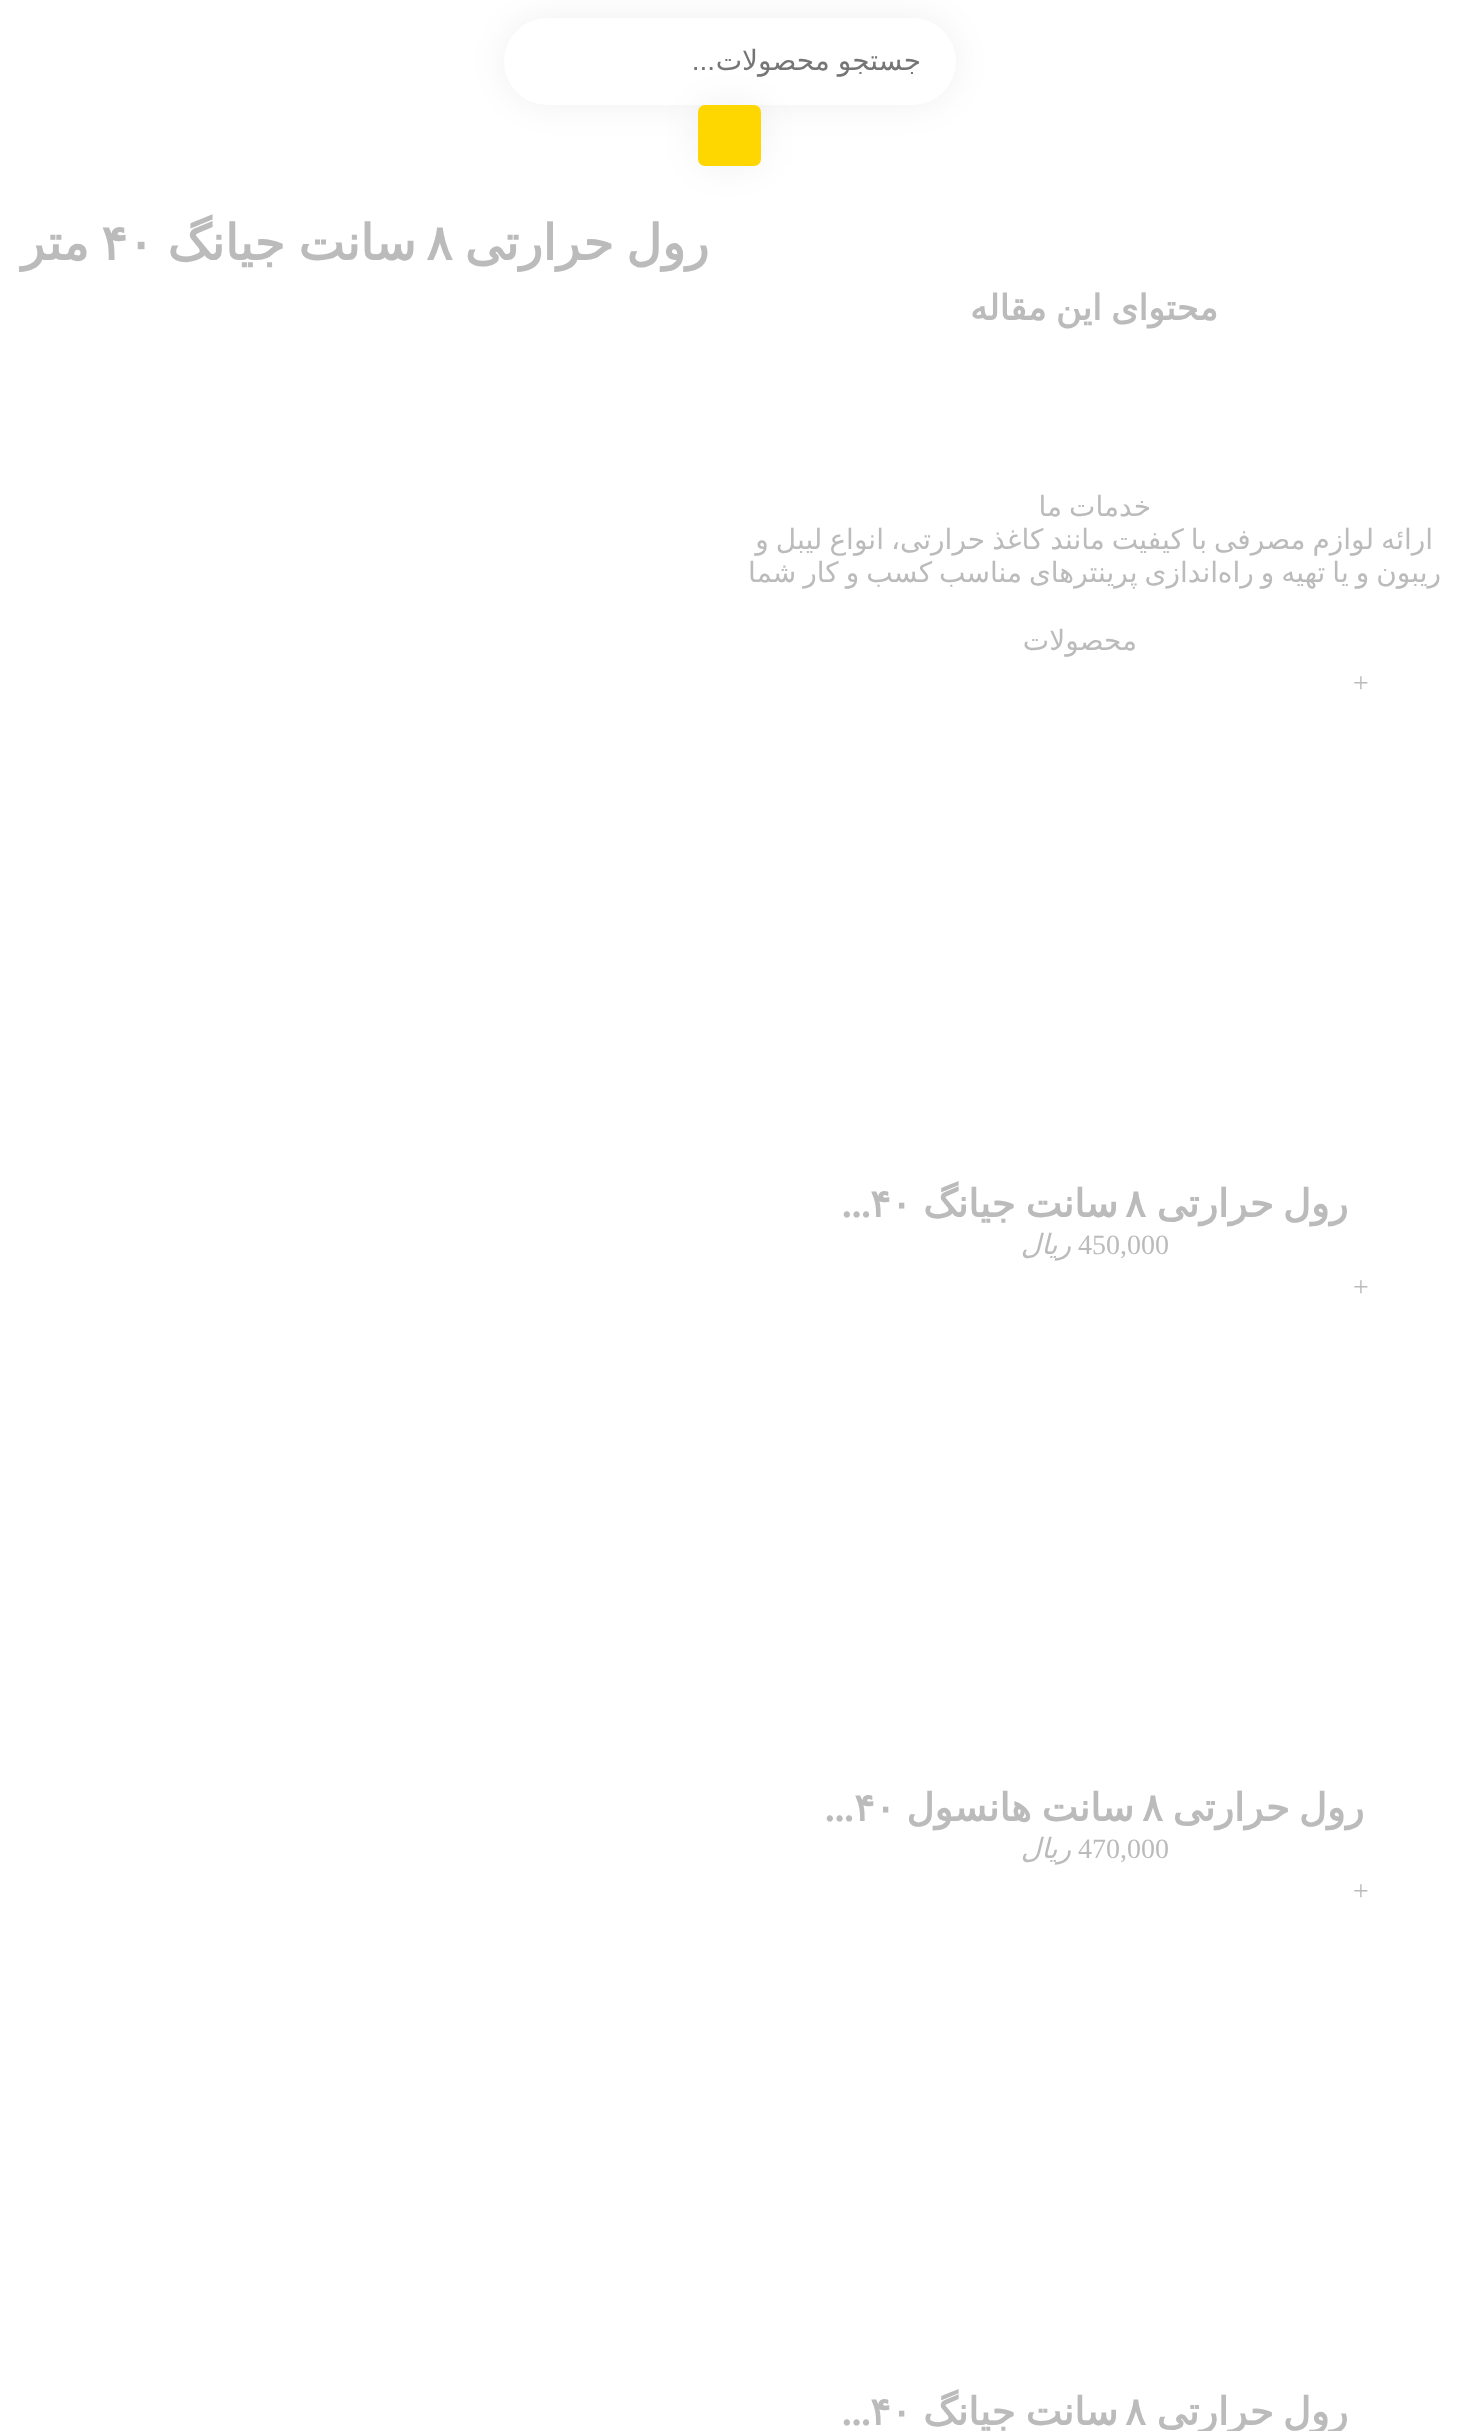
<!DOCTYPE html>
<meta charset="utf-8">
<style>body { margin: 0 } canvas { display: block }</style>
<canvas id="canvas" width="1458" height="2431"></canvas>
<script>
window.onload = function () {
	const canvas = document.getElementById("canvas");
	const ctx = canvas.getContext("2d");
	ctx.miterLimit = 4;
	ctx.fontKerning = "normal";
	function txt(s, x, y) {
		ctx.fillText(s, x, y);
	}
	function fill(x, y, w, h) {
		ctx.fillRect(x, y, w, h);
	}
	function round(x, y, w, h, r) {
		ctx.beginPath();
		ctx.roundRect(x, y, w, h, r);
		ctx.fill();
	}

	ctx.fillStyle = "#FFFFFF";
	fill(0, 0, 1458, 2431);
	ctx.fillStyle = "rgba(0, 0, 0, 0.06)";
	ctx.filter = "blur(17.5px)";
	ctx.beginPath();
	ctx.roundRect(504, 18, 452, 87, 43.5);
	ctx.fill();
	ctx.filter = "none";
	ctx.fillStyle = "#FFFFFF";
	round(504, 18, 452, 87, 43.5);
	ctx.fillStyle = "rgba(0, 0, 0, 0.06)";
	ctx.filter = "blur(17.5px)";
	ctx.beginPath();
	ctx.roundRect(698, 105, 63, 61, 7);
	ctx.fill();
	ctx.filter = "none";
	ctx.fillStyle = "#FED700";
	round(698, 105, 63, 61, 7);
	ctx.wordSpacing = "-1px";
	ctx.direction = "rtl";
	ctx.font = "28px DejaVu Sans";
	ctx.fillStyle = "#757575";
	txt("جستجو محصولات", 921, 70);
	ctx.wordSpacing = "0px";
	ctx.font = "28px Liberation Sans";
	txt("...", 715, 70);
	ctx.wordSpacing = "-3px";
	ctx.font = "bold 49px DejaVu Sans";
	ctx.fillStyle = "#BBBBBB";
	txt("رول حرارتی", 709, 260);
	ctx.wordSpacing = "0px";
	ctx.direction = "ltr";
	txt("۸", 426, 260);
	ctx.wordSpacing = "-2px";
	ctx.direction = "rtl";
	txt("سانت جیانگ", 416, 260);
	ctx.wordSpacing = "0px";
	ctx.direction = "ltr";
	txt("۴۰", 101, 260);
	ctx.direction = "rtl";
	txt("متر", 89, 260);
	ctx.wordSpacing = "-2px";
	ctx.font = "bold 35px DejaVu Sans";
	txt("محتوای این مقاله", 1218, 320);
	ctx.wordSpacing = "-1.9px";
	ctx.font = "28px DejaVu Sans";
	txt("خدمات ما", 1151, 516);
	txt("ارائه لوازم مصرفی با کیفیت مانند کاغذ حرارتی، انواع لیبل و", 1433, 549);
	txt("ریبون و یا تهیه و راه", 1441, 582);
	txt("اندازی پرینترهای مناسب کسب و کار شما", 1218, 582);
	ctx.wordSpacing = "0px";
	txt("محصولات", 1137, 650);
	ctx.direction = "ltr";
	ctx.font = "28px Liberation Serif";
	txt("+", 1353, 692);
	ctx.wordSpacing = "-3px";
	ctx.direction = "rtl";
	ctx.font = "bold 38.5px DejaVu Sans";
	txt("رول حرارتی", 1348, 1217);
	ctx.wordSpacing = "0px";
	ctx.direction = "ltr";
	txt("۸", 1125, 1217);
	ctx.wordSpacing = "-2px";
	ctx.direction = "rtl";
	txt("سانت جیانگ", 1118, 1217);
	ctx.wordSpacing = "0px";
	ctx.direction = "ltr";
	txt("۴۰", 870, 1217);
	ctx.font = "bold 38.5px Liberation Serif";
	txt("...", 842, 1217);
	ctx.font = "28px Liberation Serif";
	txt("450,000", 1078, 1254);
	ctx.direction = "rtl";
	ctx.font = "italic 28px DejaVu Sans";
	txt("ریال", 1071, 1254);
	ctx.direction = "ltr";
	ctx.font = "28px Liberation Serif";
	txt("+", 1353, 1296);
	ctx.wordSpacing = "-3px";
	ctx.direction = "rtl";
	ctx.font = "bold 38.5px DejaVu Sans";
	txt("رول حرارتی", 1364, 1821);
	ctx.wordSpacing = "0px";
	ctx.direction = "ltr";
	txt("۸", 1142, 1821);
	ctx.wordSpacing = "-2px";
	ctx.direction = "rtl";
	txt("سانت هانسول", 1134, 1821);
	ctx.wordSpacing = "0px";
	ctx.direction = "ltr";
	txt("۴۰", 854, 1821);
	ctx.font = "bold 38.5px Liberation Serif";
	txt("...", 825, 1821);
	ctx.font = "28px Liberation Serif";
	txt("470,000", 1078, 1858);
	ctx.direction = "rtl";
	ctx.font = "italic 28px DejaVu Sans";
	txt("ریال", 1071, 1858);
	ctx.direction = "ltr";
	ctx.font = "28px Liberation Serif";
	txt("+", 1353, 1900);
	ctx.wordSpacing = "-3px";
	ctx.direction = "rtl";
	ctx.font = "bold 38.5px DejaVu Sans";
	txt("رول حرارتی", 1348, 2425);
	ctx.wordSpacing = "0px";
	ctx.direction = "ltr";
	txt("۸", 1125, 2425);
	ctx.wordSpacing = "-2px";
	ctx.direction = "rtl";
	txt("سانت جیانگ", 1118, 2425);
	ctx.wordSpacing = "0px";
	ctx.direction = "ltr";
	txt("۴۰", 870, 2425);
	ctx.font = "bold 38.5px Liberation Serif";
	txt("...", 842, 2425);
};
</script>
